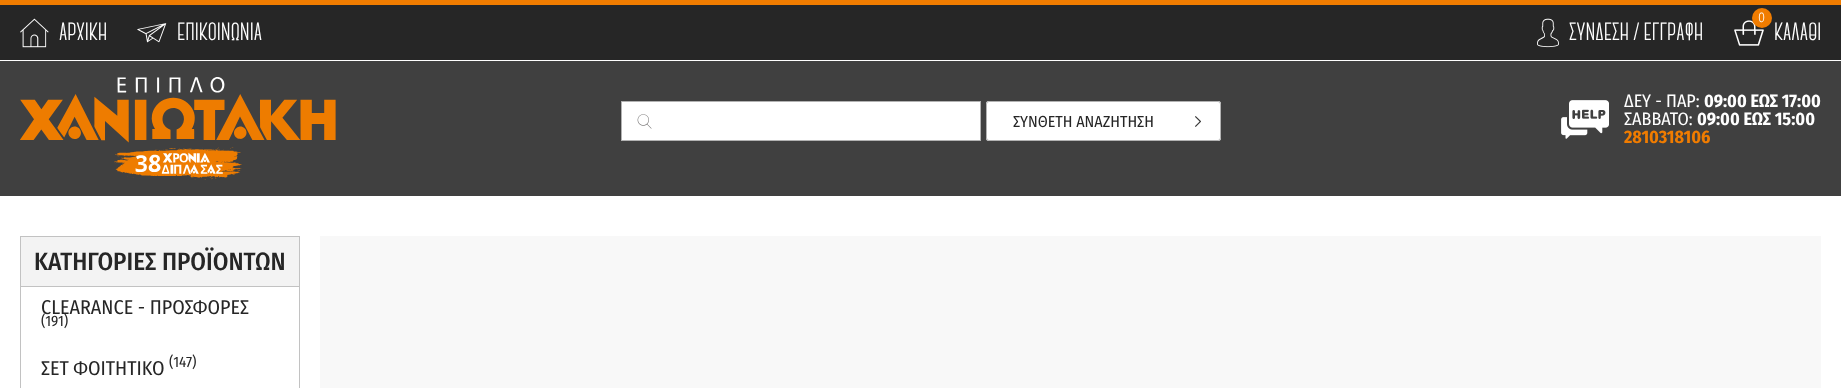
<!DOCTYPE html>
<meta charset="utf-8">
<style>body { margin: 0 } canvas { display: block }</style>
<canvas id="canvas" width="1841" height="388"></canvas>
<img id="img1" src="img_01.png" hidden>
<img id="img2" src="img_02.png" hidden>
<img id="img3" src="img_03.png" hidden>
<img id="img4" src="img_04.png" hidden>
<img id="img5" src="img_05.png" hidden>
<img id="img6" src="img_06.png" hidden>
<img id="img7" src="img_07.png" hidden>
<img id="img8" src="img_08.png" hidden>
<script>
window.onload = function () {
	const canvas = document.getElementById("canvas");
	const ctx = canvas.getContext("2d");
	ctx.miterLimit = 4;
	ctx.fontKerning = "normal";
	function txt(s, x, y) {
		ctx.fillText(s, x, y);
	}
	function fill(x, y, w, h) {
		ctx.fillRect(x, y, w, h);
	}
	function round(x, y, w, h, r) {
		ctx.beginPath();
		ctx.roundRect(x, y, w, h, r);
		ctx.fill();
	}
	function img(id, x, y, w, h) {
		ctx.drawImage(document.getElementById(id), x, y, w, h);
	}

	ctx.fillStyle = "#FFFFFF";
	fill(0, 0, 1841, 388);
	ctx.fillStyle = "#262626";
	fill(0, 5, 1841, 55);
	ctx.fillStyle = "#F07C00";
	fill(0, 0, 1841, 5);
	img("img1", 20, 18, 29, 30);
	img("img2", 137, 23, 30, 20);
	img("img3", 1537, 18, 22, 30);
	img("img4", 1734, 20, 30, 26);
	ctx.beginPath();
	ctx.arc(1762, 18, 10, 0, Math.PI * 2);
	ctx.fill();
	ctx.fillStyle = "#404040";
	fill(0, 61, 1841, 135);
	img("img5", 20, 77, 316, 103);
	ctx.fillStyle = "#FFFFFF";
	fill(622, 102, 358, 38);
	img("img6", 637, 114, 15, 15);
	ctx.strokeStyle = "#B2B2B2";
	ctx.strokeRect(621.5, 101.5, 359, 39);
	round(986, 101, 235, 40, 3);
	img("img7", 1195, 116, 6, 11);
	ctx.beginPath();
	ctx.roundRect(986.5, 101.5, 234, 39, 2.5);
	ctx.stroke();
	img("img8", 1561, 100, 48, 39);
	ctx.strokeStyle = "#C2C2C2";
	ctx.strokeRect(20.5, 236.5, 279, 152);
	ctx.fillStyle = "#F3F3F3";
	fill(21, 237, 278, 49);
	ctx.fillStyle = "#C2C2C2";
	fill(21, 286, 278, 1);
	ctx.fillStyle = "#F8F8F8";
	fill(320, 236, 1501, 152);
	ctx.font = "bold 25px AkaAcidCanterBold";
	ctx.fillStyle = "#FFFFFF";
	txt("ΑΡΧΙΚΗ", 59, 40);
	txt("ΕΠΙΚΟΙΝΩΝΙΑ", 177, 40);
	txt("ΣΥΝΔΕΣΗ / ΕΓΓΡΑΦΗ", 1569, 40);
	ctx.font = "300 14px Fira Sans Condensed";
	txt("0", 1758, 22);
	ctx.font = "bold 25px AkaAcidCanterBold";
	txt("ΚΑΛΑΘΙ", 1774, 40);
	ctx.font = "16px Fira Sans Condensed";
	ctx.fillStyle = "#262626";
	txt("ΣΥΝΘΕΤΗ ΑΝΑΖΗΤΗΣΗ", 1013, 127);
	ctx.font = "18px Fira Sans Condensed";
	ctx.fillStyle = "#FFFFFF";
	txt("ΔΕΥ - ΠΑΡ:", 1624, 107);
	ctx.font = "bold 18px Fira Sans Condensed";
	txt("09:00 ΕΩΣ 17:00", 1704, 107);
	ctx.font = "18px Fira Sans Condensed";
	txt("ΣΑΒΒΑΤΟ:", 1624, 125);
	ctx.font = "bold 18px Fira Sans Condensed";
	txt("09:00 ΕΩΣ 15:00", 1697, 125);
	ctx.fillStyle = "#F07C00";
	txt("2810318106", 1624, 143);
	ctx.font = "500 25px Fira Sans Condensed";
	ctx.fillStyle = "#262626";
	txt("ΚΑΤΗΓΟΡΙΕΣ ΠΡΟΪΟΝΤΩΝ", 34, 270);
	ctx.font = "20px Fira Sans Condensed";
	txt("CLEARANCE - ΠΡΟΣΦΟΡΕΣ", 41, 314);
	ctx.font = "15px Fira Sans Condensed";
	txt("(191)", 41, 326);
	ctx.font = "20px Fira Sans Condensed";
	txt("ΣΕΤ ΦΟΙΤΗΤΙΚΟ", 41, 375);
	ctx.font = "15px Fira Sans Condensed";
	txt("(147)", 169, 367);
};
</script>
